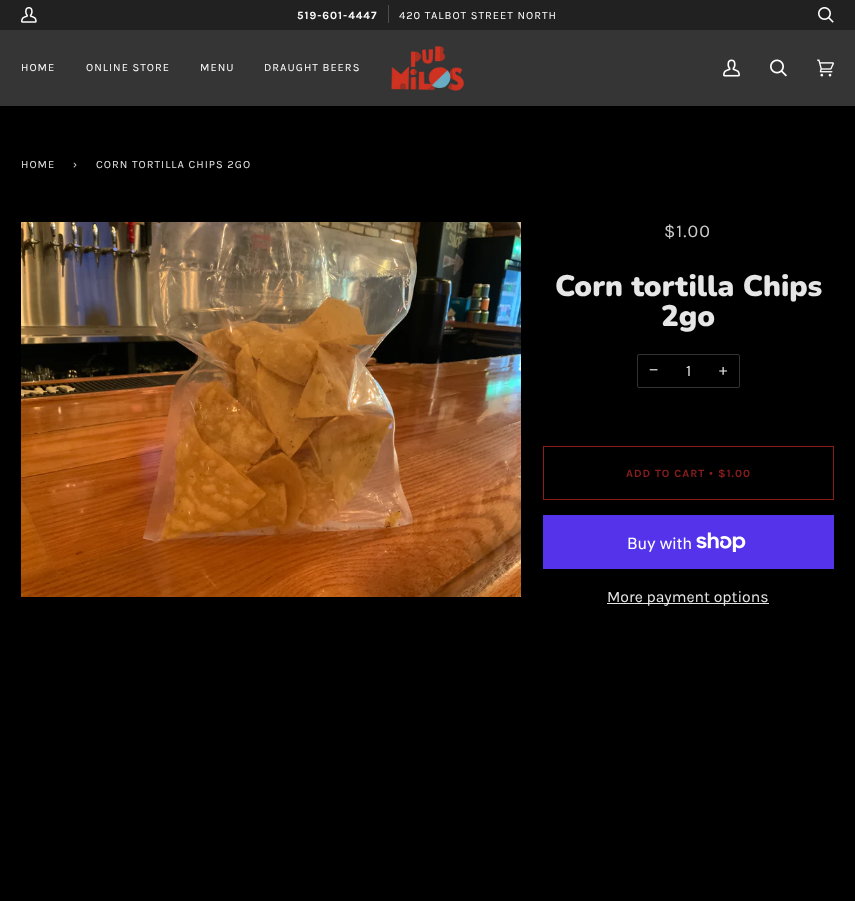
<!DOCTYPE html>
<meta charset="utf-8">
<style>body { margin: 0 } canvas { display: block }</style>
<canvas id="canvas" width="855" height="901"></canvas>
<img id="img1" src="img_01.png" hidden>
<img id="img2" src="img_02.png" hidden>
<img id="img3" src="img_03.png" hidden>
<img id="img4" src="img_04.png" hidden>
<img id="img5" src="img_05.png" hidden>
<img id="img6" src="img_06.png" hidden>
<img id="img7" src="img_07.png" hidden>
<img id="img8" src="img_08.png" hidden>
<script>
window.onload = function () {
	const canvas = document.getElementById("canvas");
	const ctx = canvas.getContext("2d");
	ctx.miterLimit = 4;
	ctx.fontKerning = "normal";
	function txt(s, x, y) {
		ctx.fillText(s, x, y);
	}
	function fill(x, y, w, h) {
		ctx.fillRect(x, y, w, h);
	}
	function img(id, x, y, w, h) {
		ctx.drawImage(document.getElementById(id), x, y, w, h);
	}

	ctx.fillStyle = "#000000";
	fill(0, 0, 855, 901);
	ctx.fillStyle = "#212121";
	fill(0, 0, 855, 30);
	img("img1", 21, 7, 16, 16);
	ctx.fillStyle = "#4D4D4D";
	fill(388, 5, 1, 18);
	img("img2", 818, 7, 16, 16);
	ctx.fillStyle = "#353535";
	fill(0, 30, 855, 76);
	img("img3", 391, 46, 74, 45);
	img("img4", 723, 59, 17, 18);
	img("img5", 770, 59, 17, 18);
	img("img6", 817, 59, 17, 18);
	img("img7", 21, 222, 500, 375);
	ctx.beginPath();
	ctx.roundRect(637.5, 354.5, 102, 33, 1.5);
	ctx.strokeStyle = "#333333";
	ctx.stroke();
	ctx.strokeStyle = "#8B1D1D";
	ctx.strokeRect(543.5, 446.5, 290, 53);
	ctx.fillStyle = "#5433EB";
	fill(543, 515, 291, 54);
	img("img8", 696, 532, 50, 20);
	ctx.fillStyle = "#E6E6E6";
	fill(607, 603, 162, 1);
	ctx.letterSpacing = "1px";
	ctx.font = "bold 11.1px Karla";
	ctx.fillStyle = "#FFFFFF";
	txt("519-601-4447", 297, 19);
	ctx.font = "11.1px Karla";
	txt("420 TALBOT STREET NORTH", 399, 19);
	txt("HOME", 21, 71);
	txt("ONLINE STORE", 86, 71);
	txt("MENU", 200, 71);
	txt("DRAUGHT BEERS", 264, 71);
	ctx.fillStyle = "#E6E6E6";
	txt("HOME", 21, 168);
	txt("›", 73, 168);
	txt("CORN TORTILLA CHIPS 2GO", 96, 168);
	ctx.font = "18px Karla";
	ctx.fillStyle = "#CCCCCC";
	txt("$1.00", 664, 237);
	ctx.letterSpacing = "0px";
	ctx.font = "900 29.6px Nunito";
	ctx.fillStyle = "#E6E6E6";
	txt("Corn tortilla Chips", 555, 296);
	txt("2go", 661, 326);
	ctx.font = "15.75px Liberation Sans";
	txt("−", 649, 375);
	ctx.font = "15.75px Karla";
	txt("1", 686, 376);
	txt("+", 719, 375);
	ctx.letterSpacing = "1px";
	ctx.font = "bold 11.1px Karla";
	ctx.fillStyle = "#8B1D1D";
	txt("ADD TO CART", 626, 477);
	ctx.font = "bold 11.1px Liberation Serif";
	txt("•", 709, 477);
	ctx.font = "bold 11.1px Karla";
	txt("$1.00", 718, 477);
	ctx.letterSpacing = "0px";
	ctx.font = "16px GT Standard";
	ctx.fillStyle = "#FFFFFF";
	txt("Buy with", 627, 549);
	ctx.font = "15.75px Karla";
	ctx.fillStyle = "#E6E6E6";
	txt("More payment options", 607, 602);
};
</script>
